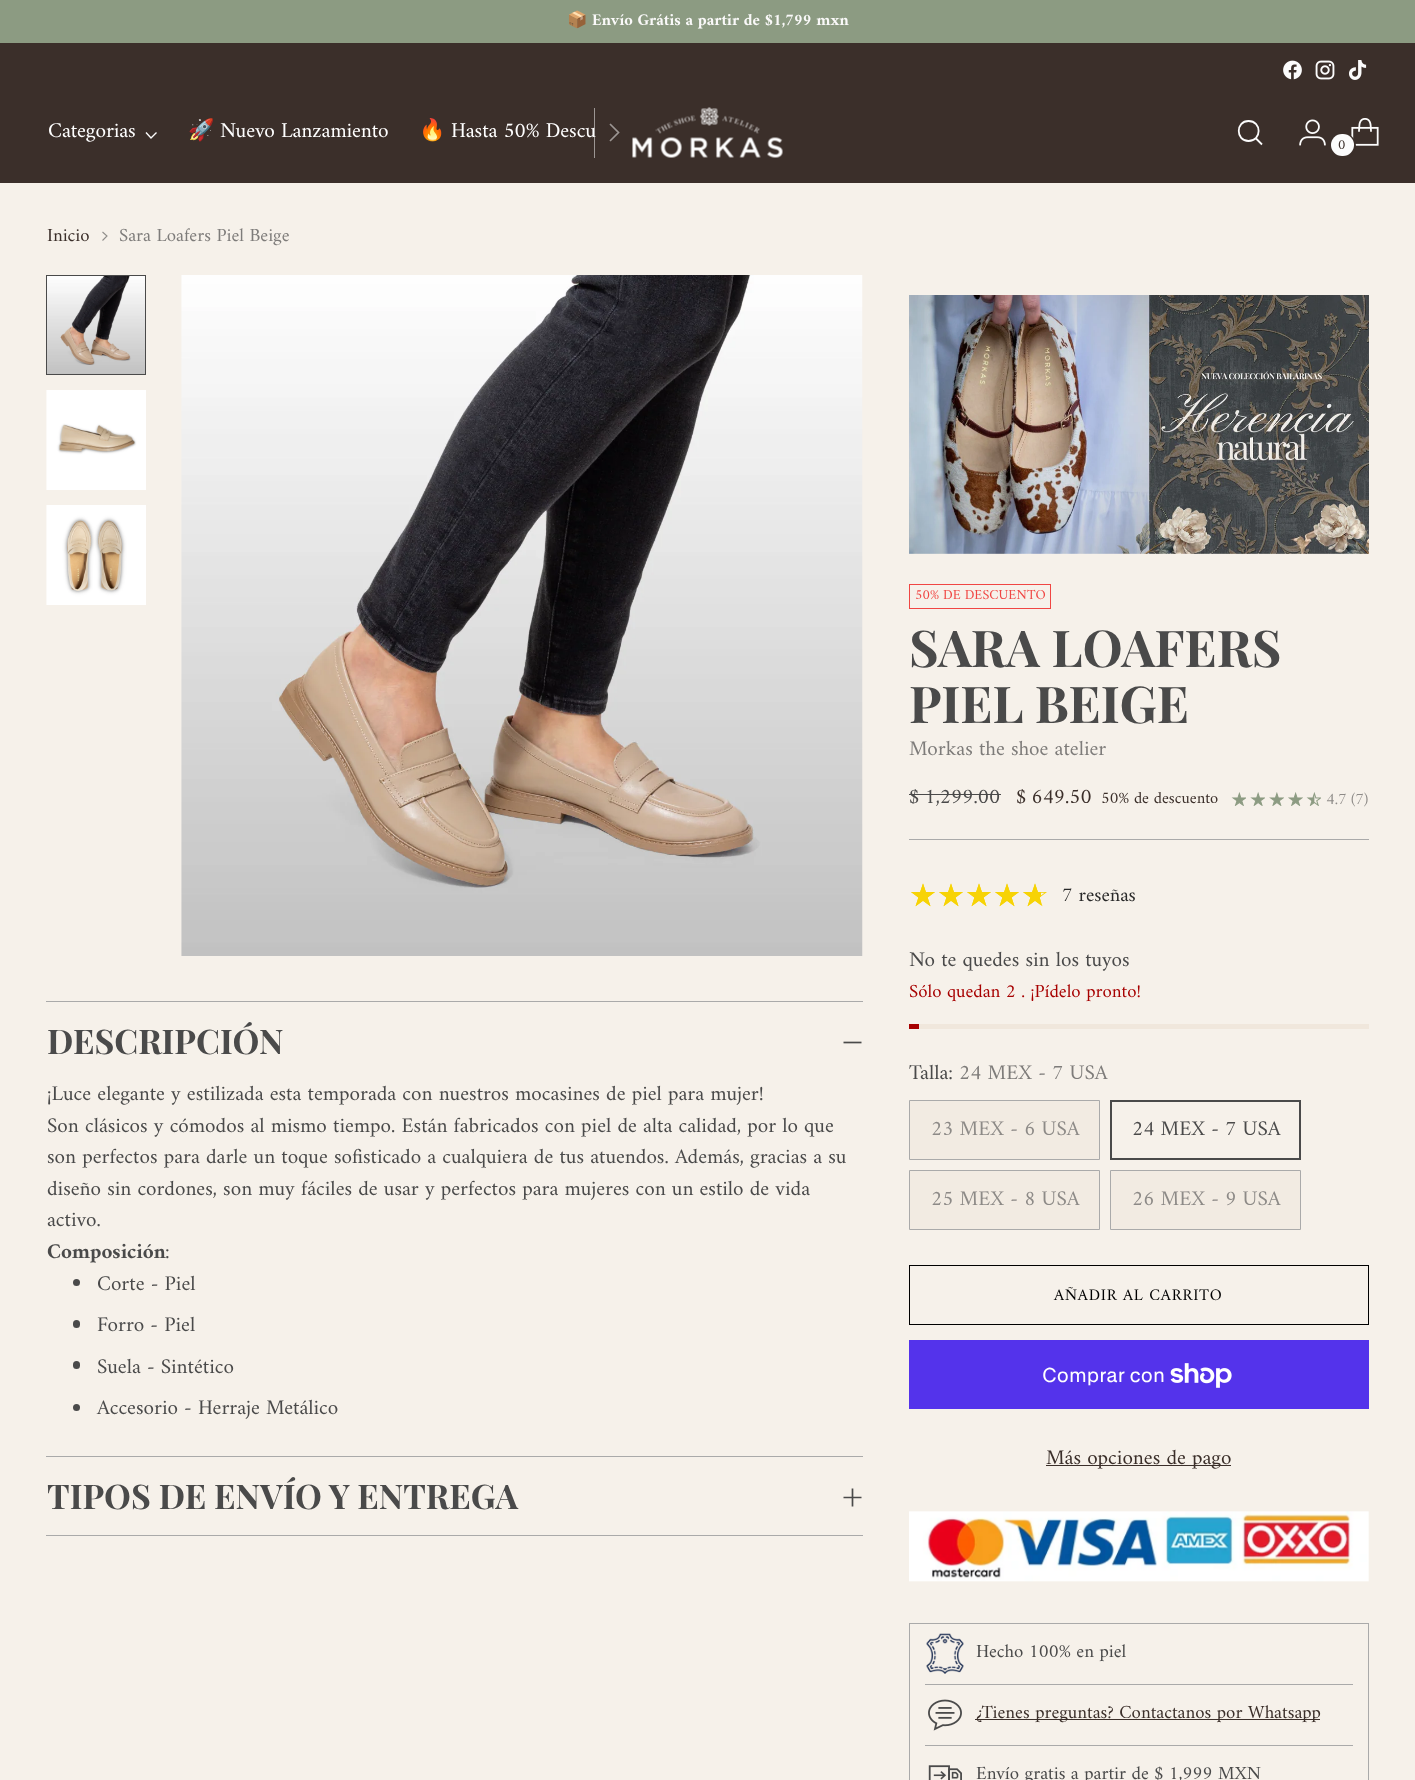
<!DOCTYPE html>
<meta charset="utf-8">
<style>body { margin: 0 } canvas { display: block }</style>
<canvas id="canvas" width="1415" height="1780"></canvas>
<img id="img1" src="img_01.png" hidden>
<img id="img2" src="img_02.png" hidden>
<img id="img3" src="img_03.png" hidden>
<img id="img4" src="img_04.png" hidden>
<img id="img5" src="img_05.png" hidden>
<img id="img6" src="img_06.png" hidden>
<img id="img7" src="img_07.png" hidden>
<img id="img8" src="img_08.png" hidden>
<img id="img9" src="img_09.png" hidden>
<img id="img10" src="img_10.png" hidden>
<img id="img11" src="img_11.png" hidden>
<img id="img12" src="img_12.png" hidden>
<img id="img13" src="img_13.png" hidden>
<img id="img14" src="img_14.png" hidden>
<img id="img15" src="img_15.png" hidden>
<img id="img16" src="img_16.png" hidden>
<img id="img17" src="img_17.png" hidden>
<img id="img18" src="img_18.png" hidden>
<img id="img19" src="img_19.png" hidden>
<img id="img20" src="img_20.png" hidden>
<img id="img21" src="img_21.png" hidden>
<script>
window.onload = function () {
	const canvas = document.getElementById("canvas");
	const ctx = canvas.getContext("2d");
	ctx.miterLimit = 4;
	ctx.fontKerning = "normal";
	function txt(s, x, y) {
		ctx.fillText(s, x, y);
	}
	function fill(x, y, w, h) {
		ctx.fillRect(x, y, w, h);
	}
	function round(x, y, w, h, r) {
		ctx.beginPath();
		ctx.roundRect(x, y, w, h, r);
		ctx.fill();
	}
	function img(id, x, y, w, h) {
		ctx.drawImage(document.getElementById(id), x, y, w, h);
	}

	ctx.fillStyle = "#F6F1EA";
	fill(0, 0, 1415, 1780);
	ctx.fillStyle = "#8C9B82";
	fill(0, 0, 1415, 43);
	ctx.fillStyle = "#3B2F2A";
	fill(0, 43, 1415, 140);
	img("img1", 1283, 60, 19, 20);
	img("img2", 1315, 60, 20, 20);
	img("img3", 1349, 60, 18, 20);
	ctx.beginPath();
	ctx.moveTo(146, 132.5);
	ctx.lineTo(151, 138);
	ctx.lineTo(156.5, 132.5);
	ctx.strokeStyle = "#FCFCFC";
	ctx.lineWidth = 1.4;
	ctx.stroke();
	ctx.fillStyle = "#9C9693";
	fill(594, 108, 1, 50);
	ctx.beginPath();
	ctx.moveTo(610, 141);
	ctx.lineTo(618.5, 132.5);
	ctx.lineTo(610, 124);
	ctx.strokeStyle = "#9C9693";
	ctx.lineWidth = 1.7;
	ctx.stroke();
	img("img4", 632, 107, 151, 51);
	ctx.beginPath();
	ctx.moveTo(1248.5, 141);
	ctx.bezierCurveTo(1262, 141, 1262, 121, 1248.5, 121);
	ctx.bezierCurveTo(1235.5, 121, 1235.5, 141, 1248.5, 141);
	ctx.closePath();
	ctx.strokeStyle = "#FCFCFC";
	ctx.lineWidth = 1.8;
	ctx.lineCap = "round";
	ctx.stroke();
	ctx.beginPath();
	ctx.moveTo(1256, 138.5);
	ctx.lineTo(1262, 144.5);
	ctx.lineCap = "butt";
	ctx.stroke();
	img("img5", 1299, 119, 27, 27);
	img("img6", 1351, 118, 28, 28);
	ctx.beginPath();
	ctx.arc(1343, 146, 12, 0, Math.PI * 2);
	ctx.strokeStyle = "#3B2F2A";
	ctx.lineWidth = 2;
	ctx.stroke();
	ctx.fillStyle = "#FCFCFC";
	round(1331, 134, 23, 22, 11);
	ctx.beginPath();
	ctx.moveTo(102.5, 240.5);
	ctx.lineTo(107, 236);
	ctx.lineTo(102.5, 232);
	ctx.strokeStyle = "#8F8D8A";
	ctx.lineWidth = 1.1;
	ctx.stroke();
	img("img7", 47, 276, 98, 98);
	ctx.strokeStyle = "#4A4A4A";
	ctx.lineWidth = 1;
	ctx.strokeRect(46.5, 275.5, 99, 99);
	img("img8", 46, 390, 100, 100);
	img("img9", 46, 505, 100, 100);
	img("img10", 181, 275, 682, 681);
	ctx.fillStyle = "#AAAAAA";
	fill(46, 1001, 817, 1);
	fill(46, 1456, 817, 1);
	ctx.beginPath();
	ctx.moveTo(843.5, 1042.5);
	ctx.lineTo(861.5, 1042.5);
	ctx.lineWidth = 1.7;
	ctx.stroke();
	ctx.fillStyle = "#4A4A4A";
	ctx.beginPath();
	ctx.arc(76.5, 1282.5, 3.5, 0, Math.PI * 2);
	ctx.fill();
	round(73, 1320, 7, 8, 3.5);
	round(73, 1361, 7, 8, 3.5);
	ctx.beginPath();
	ctx.arc(76.5, 1407.5, 3.5, 0, Math.PI * 2);
	ctx.fill();
	ctx.fillStyle = "#AAAAAA";
	fill(46, 1535, 817, 1);
	ctx.beginPath();
	ctx.moveTo(843.5, 1497.5);
	ctx.lineTo(852.5, 1497.5);
	ctx.moveTo(861.5, 1497.5);
	ctx.lineTo(852.5, 1497.5);
	ctx.moveTo(852.5, 1497.5);
	ctx.lineTo(852.5, 1488.5);
	ctx.moveTo(852.5, 1497.5);
	ctx.lineTo(852.5, 1506.5);
	ctx.stroke();
	img("img11", 909, 295, 460, 259);
	fill(909, 839, 460, 1);
	ctx.strokeStyle = "#F04643";
	ctx.lineWidth = 1;
	ctx.strokeRect(909.5, 584.5, 141, 24);
	ctx.fillStyle = "#4A4A4A";
	fill(909, 794, 92, 1);
	img("img12", 1231, 792, 15, 14);
	img("img13", 1250, 792, 15, 14);
	img("img14", 1269, 792, 15, 14);
	img("img15", 1288, 792, 15, 14);
	img("img16", 1306, 792, 15, 14);
	ctx.fillStyle = "#F0E7DC";
	fill(919, 1024, 450, 5);
	ctx.fillStyle = "#A70100";
	fill(909, 1024, 10, 5);
	ctx.fillStyle = "#F2EBE2";
	ctx.beginPath();
	ctx.rect(909.5, 1100.5, 190, 59);
	ctx.fill();
	ctx.strokeStyle = "#AAAAAA";
	ctx.stroke();
	ctx.strokeStyle = "#4A4A4A";
	ctx.strokeRect(1111.5, 1101.5, 188, 57);
	ctx.strokeRect(1110.5, 1100.5, 190, 59);
	ctx.beginPath();
	ctx.rect(909.5, 1170.5, 190, 59);
	ctx.fill();
	ctx.strokeStyle = "#AAAAAA";
	ctx.stroke();
	ctx.beginPath();
	ctx.rect(1110.5, 1170.5, 190, 59);
	ctx.fill();
	ctx.stroke();
	ctx.strokeStyle = "#000000";
	ctx.strokeRect(909.5, 1265.5, 459, 59);
	ctx.fillStyle = "#5433EB";
	fill(909, 1340, 460, 69);
	img("img17", 1170, 1363, 62, 25);
	ctx.fillStyle = "#3B2F2A";
	fill(1046, 1465, 185, 1);
	img("img18", 909, 1511, 460, 71);
	ctx.strokeStyle = "#AAAAAA";
	ctx.strokeRect(909.5, 1623.5, 459, 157);
	img("img19", 926, 1633, 38, 41);
	ctx.fillStyle = "#AAAAAA";
	fill(925, 1684, 428, 1);
	img("img20", 928, 1699, 34, 32);
	ctx.fillStyle = "#3B2F2A";
	fill(975, 1719, 345, 1);
	ctx.fillStyle = "#AAAAAA";
	fill(925, 1745, 428, 1);
	img("img21", 928, 1765, 34, 15);
	ctx.font = "16.4px Noto Color Emoji";
	ctx.fillStyle = "#FAF9F9";
	txt("📦", 567, 25);
	ctx.font = "bold 16.4px Amiri";
	txt("Envío Grátis a partir de $1,799 mxn", 592, 25);
	ctx.letterSpacing = "-0.1px";
	ctx.font = "21.25px Amiri";
	ctx.fillStyle = "#FFFFFF";
	txt("Categorias", 48, 137);
	ctx.font = "21.25px Noto Color Emoji";
	txt("🚀", 188, 137);
	ctx.font = "21.25px Amiri";
	txt("Nuevo Lanzamiento", 220, 137);
	ctx.font = "21.25px Noto Color Emoji";
	txt("🔥", 419, 137);
	ctx.font = "21.25px Amiri";
	txt("Hasta 50% Descu", 451, 137);
	ctx.letterSpacing = "0px";
	ctx.font = "14px Amiri";
	ctx.fillStyle = "#3B2F2A";
	txt("0", 1338, 149);
	ctx.font = "18.75px Amiri";
	txt("Inicio", 47, 241);
	ctx.fillStyle = "#7E7C7A";
	txt("Sara Loafers Piel Beige", 119, 241);
	ctx.font = "bold 33.9px Playfair Display";
	ctx.fillStyle = "#4A4A4A";
	txt("DESCRIPCIÓN", 47, 1054);
	ctx.font = "21.1px Amiri";
	txt("¡Luce elegante y estilizada esta temporada con nuestros mocasines de piel para mujer!", 47, 1100);
	txt("Son clásicos y cómodos al mismo tiempo. Están fabricados con piel de alta calidad, por lo que", 47, 1132);
	txt("son perfectos para darle un toque sofisticado a cualquiera de tus atuendos. Además, gracias a su", 47, 1163);
	txt("diseño sin cordones, son muy fáciles de usar y perfectos para mujeres con un estilo de vida", 47, 1195);
	txt("activo.", 47, 1226);
	ctx.font = "bold 21.1px Amiri";
	txt("Composición", 47, 1258);
	ctx.font = "21.1px Amiri";
	txt(":", 165, 1258);
	txt("Corte - Piel", 97, 1290);
	txt("Forro - Piel", 97, 1331);
	txt("Suela - Sintético", 97, 1373);
	txt("Accesorio - Herraje Metálico", 97, 1414);
	ctx.font = "bold 33.9px Playfair Display";
	txt("TIPOS DE ENVÍO Y ENTREGA", 47, 1509);
	ctx.font = "14px Amiri";
	ctx.fillStyle = "#F04643";
	txt("50% DE DESCUENTO", 915, 599);
	ctx.font = "bold 50.75px Playfair Display";
	ctx.fillStyle = "#4A4A4A";
	txt("SARA LOAFERS", 909, 667);
	txt("PIEL BEIGE", 909, 723);
	ctx.font = "21.1px Amiri";
	ctx.fillStyle = "#7E7C7A";
	txt("Morkas the shoe atelier", 909, 755);
	ctx.wordSpacing = "-1px";
	ctx.fillStyle = "#4A4A4A";
	txt("$ 1,299.00", 909, 803);
	ctx.fillStyle = "#3B2F2A";
	txt("$ 649.50", 1016, 803);
	ctx.wordSpacing = "0px";
	ctx.font = "16.4px Amiri";
	txt("50% de descuento", 1101, 803);
	ctx.fillStyle = "#8D8A87";
	txt("4.7", 1326, 804);
	txt("(7)", 1351, 804);
	ctx.font = "31.25px DejaVu Sans";
	ctx.fillStyle = "#F7D305";
	txt("☆☆☆☆☆", 909, 906);
	ctx.save();
	ctx.beginPath();
	ctx.rect(909, 873, 132, 46);
	ctx.clip();
	txt("★★★★★", 909, 906);
	ctx.restore();
	ctx.font = "20px Amiri";
	ctx.fillStyle = "#292929";
	txt("7 reseñas", 1062, 901);
	ctx.font = "21.1px Amiri";
	ctx.fillStyle = "#4A4A4A";
	txt("No te quedes sin los tuyos", 909, 966);
	ctx.font = "18.75px Amiri";
	ctx.fillStyle = "#A70100";
	txt("Sólo quedan 2 . ¡Pídelo pronto!", 909, 997);
	ctx.font = "21.1px Amiri";
	ctx.fillStyle = "#4A4A4A";
	txt("Talla:", 909, 1079);
	ctx.fillStyle = "#7E7C7A";
	txt("24 MEX - 7 USA", 959, 1079);
	ctx.fillStyle = "#8D8A87";
	txt("23 MEX - 6 USA", 931, 1135);
	ctx.fillStyle = "#4A4A4A";
	txt("24 MEX - 7 USA", 1132, 1135);
	ctx.fillStyle = "#8D8A87";
	txt("25 MEX - 8 USA", 931, 1205);
	txt("26 MEX - 9 USA", 1132, 1205);
	ctx.letterSpacing = "0.8px";
	ctx.font = "16.4px Amiri";
	ctx.fillStyle = "#000000";
	txt("AÑADIR AL CARRITO", 1054, 1300);
	ctx.letterSpacing = "0px";
	ctx.font = "20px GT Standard";
	ctx.fillStyle = "#FFFFFF";
	txt("Comprar con", 1042, 1382);
	ctx.font = "21.1px Amiri";
	ctx.fillStyle = "#3B2F2A";
	txt("Más opciones de pago", 1046, 1464);
	ctx.font = "18.75px Amiri";
	ctx.fillStyle = "#4A4A4A";
	txt("Hecho 100% en piel", 976, 1657);
	ctx.fillStyle = "#3B2F2A";
	txt("¿Tienes preguntas? Contactanos por Whatsapp", 976, 1718);
	ctx.fillStyle = "#4A4A4A";
	txt("Envío gratis a partir de $ 1,999 MXN", 976, 1779);
};
</script>
